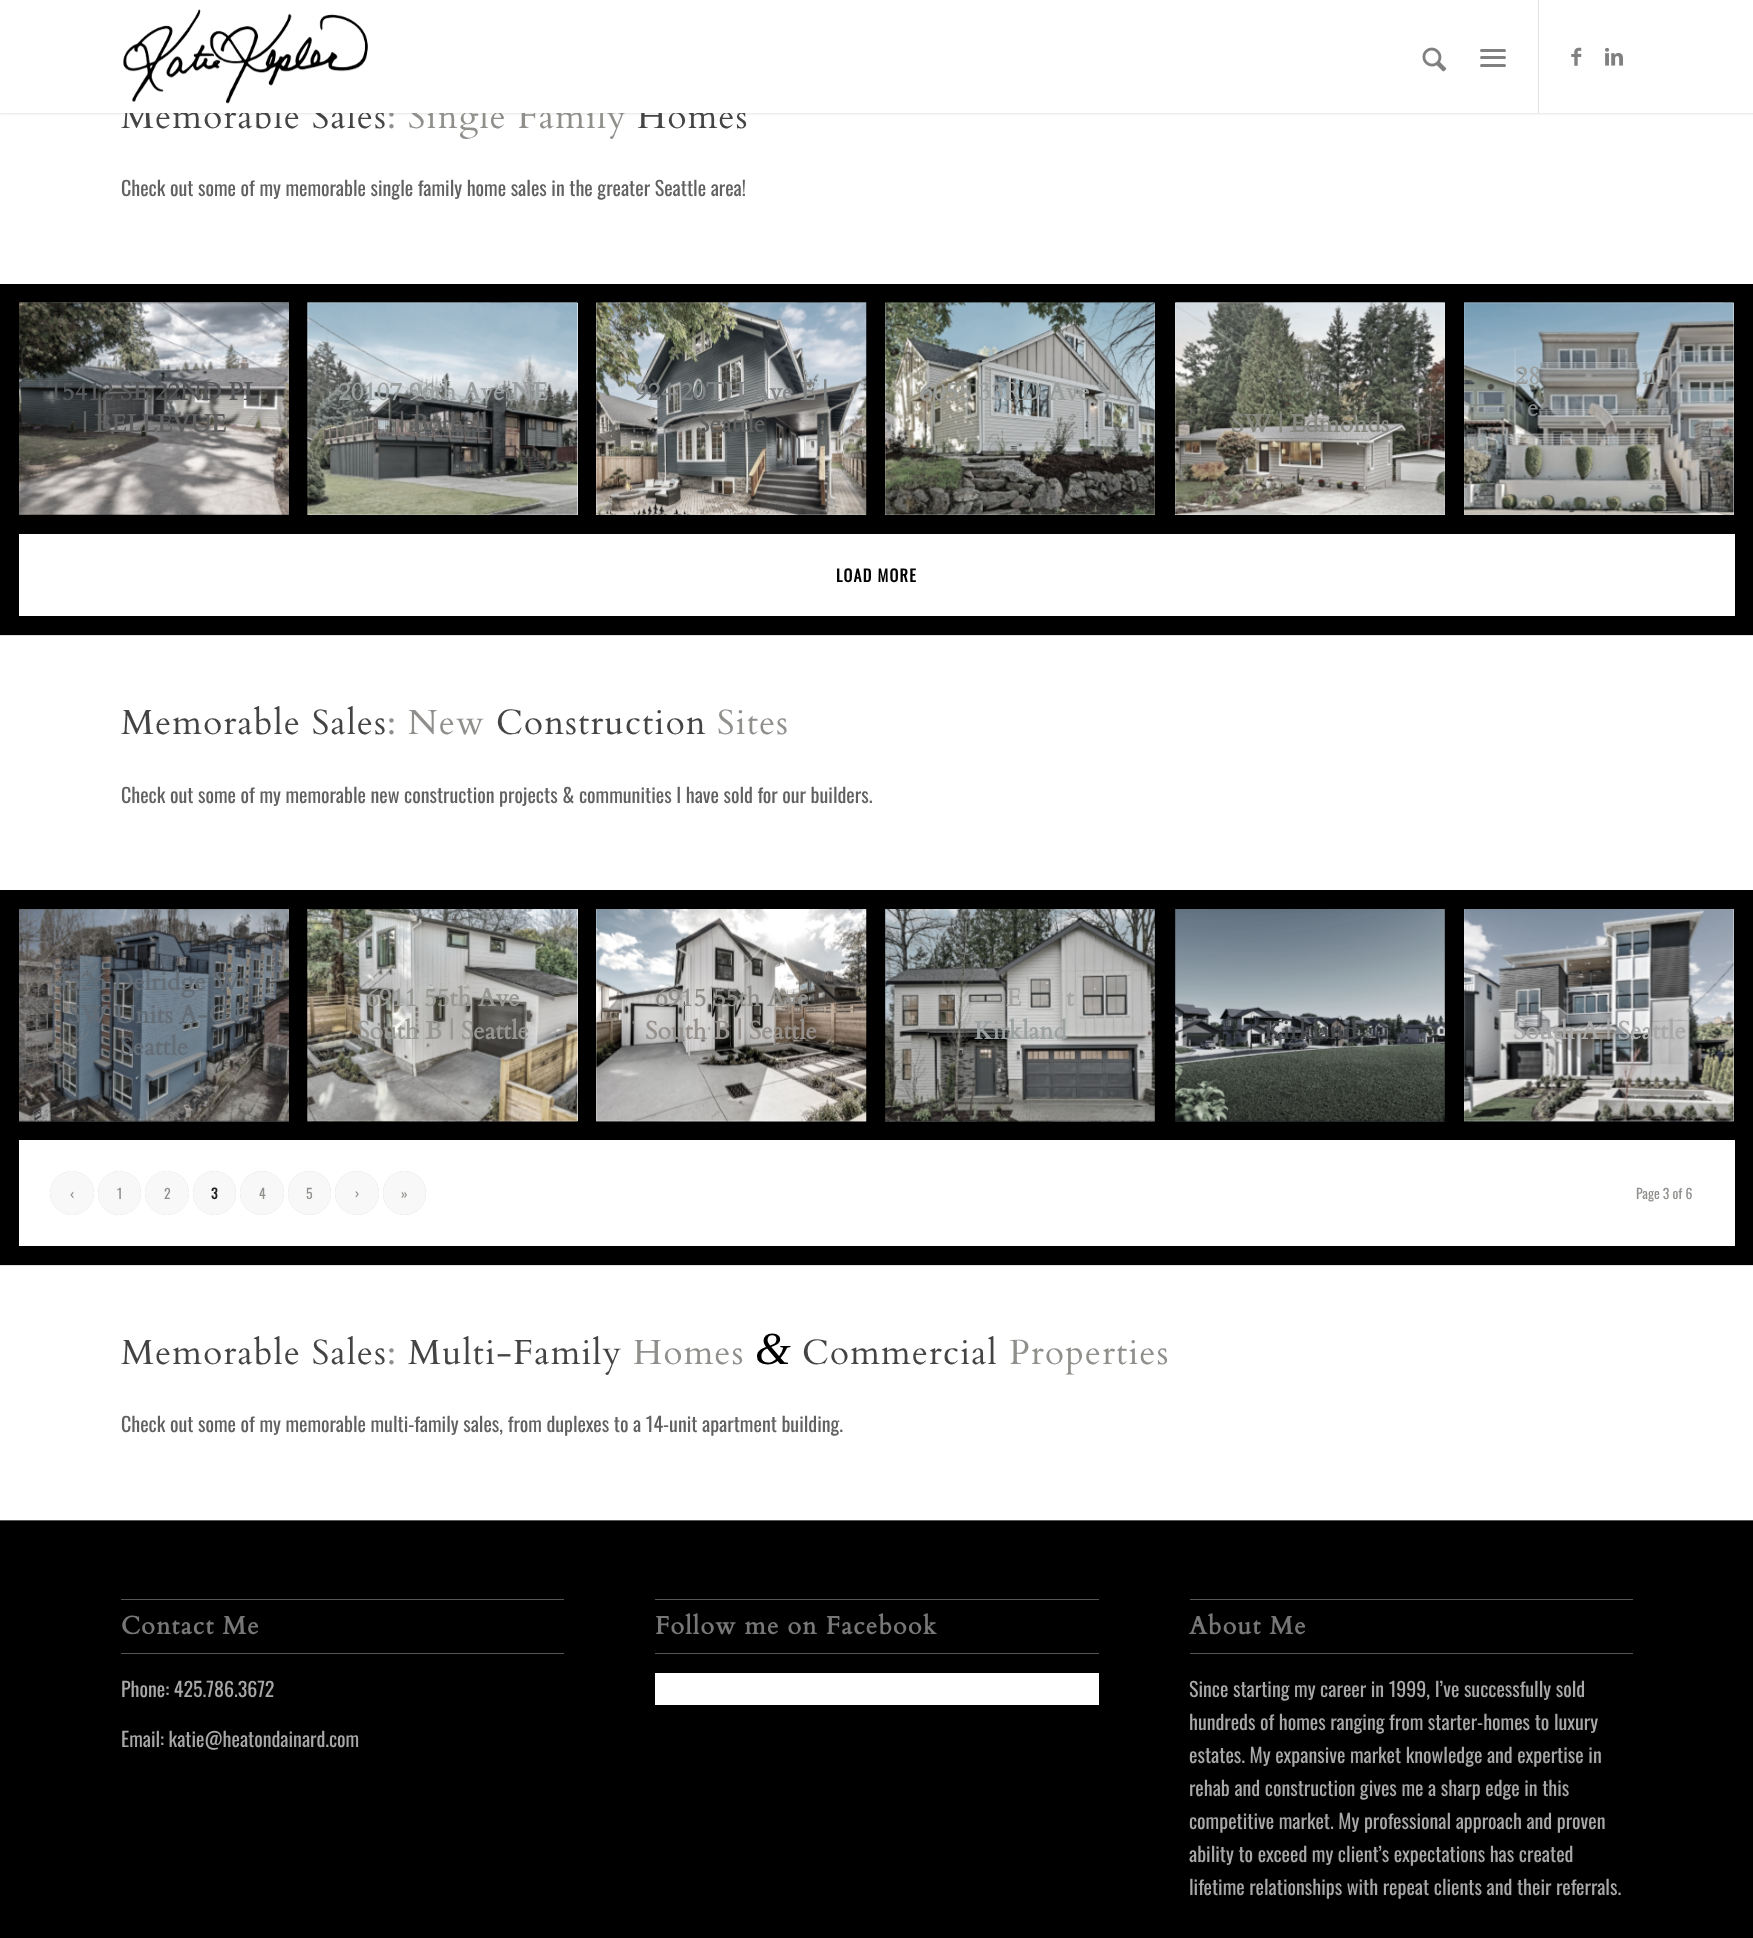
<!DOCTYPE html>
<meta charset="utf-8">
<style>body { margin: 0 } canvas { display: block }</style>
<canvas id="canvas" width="1753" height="1938"></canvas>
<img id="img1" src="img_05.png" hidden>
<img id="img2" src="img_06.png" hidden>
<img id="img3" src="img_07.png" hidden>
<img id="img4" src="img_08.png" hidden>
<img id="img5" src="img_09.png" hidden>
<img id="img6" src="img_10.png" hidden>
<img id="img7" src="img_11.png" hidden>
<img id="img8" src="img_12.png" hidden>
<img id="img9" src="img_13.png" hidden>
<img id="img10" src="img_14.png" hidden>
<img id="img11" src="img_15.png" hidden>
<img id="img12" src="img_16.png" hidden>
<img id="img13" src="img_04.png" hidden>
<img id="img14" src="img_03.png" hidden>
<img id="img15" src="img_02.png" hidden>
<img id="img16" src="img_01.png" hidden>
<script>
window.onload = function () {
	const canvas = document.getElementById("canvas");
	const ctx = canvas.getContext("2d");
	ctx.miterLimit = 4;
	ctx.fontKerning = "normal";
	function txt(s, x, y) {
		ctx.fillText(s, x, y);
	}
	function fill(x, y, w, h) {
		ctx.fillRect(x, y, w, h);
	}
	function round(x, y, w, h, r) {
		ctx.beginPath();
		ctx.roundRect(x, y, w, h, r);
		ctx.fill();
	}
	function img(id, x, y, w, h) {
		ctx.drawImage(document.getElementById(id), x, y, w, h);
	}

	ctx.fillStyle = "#FFFFFF";
	fill(0, 0, 1753, 1938);
	ctx.fillStyle = "rgba(0, 0, 0, 0.1)";
	ctx.filter = "blur(1px)";
	ctx.beginPath();
	ctx.rect(-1, -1, 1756, 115);
	ctx.fill();
	ctx.filter = "none";
	ctx.fillStyle = "#000000";
	fill(0, 284, 1753, 351);
	img("img1", 19, 302, 270, 213);
	ctx.fillStyle = "#FFFFFF";
	fill(308, 303, 270, 212);
	img("img2", 307, 302, 271, 213);
	fill(596, 303, 270, 212);
	img("img3", 596, 302, 271, 213);
	fill(885, 303, 270, 212);
	img("img4", 885, 302, 270, 213);
	fill(1175, 303, 270, 212);
	img("img5", 1175, 302, 270, 213);
	fill(1464, 303, 270, 212);
	img("img6", 1464, 302, 270, 213);
	fill(19, 534, 1716, 82);
	ctx.fillStyle = "#E1E1E1";
	fill(0, 635, 1753, 1);
	ctx.fillStyle = "#000000";
	fill(0, 890, 1753, 375);
	img("img7", 19, 909, 270, 213);
	ctx.fillStyle = "#FFFFFF";
	fill(308, 909, 270, 212);
	img("img8", 307, 909, 271, 213);
	fill(596, 909, 270, 212);
	img("img9", 596, 909, 271, 213);
	img("img10", 885, 909, 270, 213);
	img("img11", 1175, 909, 270, 213);
	fill(1464, 909, 270, 212);
	img("img12", 1464, 909, 270, 213);
	fill(19, 1140, 1716, 106);
	ctx.fillStyle = "rgba(0, 0, 0, 0.2)";
	ctx.filter = "blur(0.5px)";
	ctx.beginPath();
	ctx.roundRect(50, 1171, 44, 44, 22);
	ctx.fill();
	ctx.filter = "none";
	ctx.fillStyle = "#F8F8F8";
	ctx.beginPath();
	ctx.arc(72, 1193, 22, 0, Math.PI * 2);
	ctx.fill();
	ctx.fillStyle = "rgba(0, 0, 0, 0.2)";
	ctx.filter = "blur(0.5px)";
	ctx.beginPath();
	ctx.roundRect(98, 1171, 43, 44, 21.5);
	ctx.fill();
	ctx.filter = "none";
	ctx.fillStyle = "#F8F8F8";
	round(98, 1171, 43, 44, 21.5);
	ctx.fillStyle = "rgba(0, 0, 0, 0.2)";
	ctx.filter = "blur(0.5px)";
	ctx.beginPath();
	ctx.roundRect(145, 1171, 44, 44, 22);
	ctx.fill();
	ctx.filter = "none";
	ctx.fillStyle = "#F8F8F8";
	ctx.beginPath();
	ctx.arc(167, 1193, 22, 0, Math.PI * 2);
	ctx.fill();
	ctx.fillStyle = "rgba(0, 0, 0, 0.2)";
	ctx.filter = "blur(0.5px)";
	ctx.beginPath();
	ctx.roundRect(193, 1171, 43, 44, 21.5);
	ctx.fill();
	ctx.filter = "none";
	ctx.fillStyle = "#F8F8F8";
	round(193, 1171, 43, 44, 21.5);
	ctx.fillStyle = "rgba(0, 0, 0, 0.2)";
	ctx.filter = "blur(0.5px)";
	ctx.beginPath();
	ctx.roundRect(240, 1171, 44, 44, 22);
	ctx.fill();
	ctx.filter = "none";
	ctx.fillStyle = "#F8F8F8";
	ctx.beginPath();
	ctx.arc(262, 1193, 22, 0, Math.PI * 2);
	ctx.fill();
	ctx.fillStyle = "rgba(0, 0, 0, 0.2)";
	ctx.filter = "blur(0.5px)";
	ctx.beginPath();
	ctx.roundRect(288, 1171, 43, 44, 21.5);
	ctx.fill();
	ctx.filter = "none";
	ctx.fillStyle = "#F8F8F8";
	round(288, 1171, 43, 44, 21.5);
	ctx.fillStyle = "rgba(0, 0, 0, 0.2)";
	ctx.filter = "blur(0.5px)";
	ctx.beginPath();
	ctx.roundRect(335, 1171, 44, 44, 22);
	ctx.fill();
	ctx.filter = "none";
	ctx.fillStyle = "#F8F8F8";
	ctx.beginPath();
	ctx.arc(357, 1193, 22, 0, Math.PI * 2);
	ctx.fill();
	ctx.fillStyle = "rgba(0, 0, 0, 0.2)";
	ctx.filter = "blur(0.5px)";
	ctx.beginPath();
	ctx.roundRect(383, 1171, 43, 44, 21.5);
	ctx.fill();
	ctx.filter = "none";
	ctx.fillStyle = "#F8F8F8";
	round(383, 1171, 43, 44, 21.5);
	ctx.fillStyle = "#E1E1E1";
	fill(0, 1265, 1753, 1);
	ctx.fillStyle = "#000000";
	fill(0, 1521, 1753, 417);
	ctx.fillStyle = "#555555";
	fill(0, 1520, 1753, 1);
	fill(121, 1599, 443, 1);
	fill(121, 1653, 443, 1);
	fill(655, 1599, 444, 1);
	fill(655, 1653, 444, 1);
	ctx.fillStyle = "#FFFFFF";
	fill(655, 1673, 444, 32);
	ctx.fillStyle = "#555555";
	fill(1190, 1599, 443, 1);
	fill(1190, 1653, 443, 1);
	ctx.letterSpacing = "1.25px";
	ctx.font = "35px Cardo";
	ctx.fillStyle = "#444444";
	txt("Memorable Sales", 121, 128);
	ctx.fillStyle = "#908F8C";
	txt(": Single Family", 387, 128);
	ctx.fillStyle = "#444444";
	txt("Homes", 637, 128);
	ctx.fillStyle = "#FFFFFF";
	fill(0, 0, 1753, 113);
	img("img13", 1605, 47, 18, 19);
	img("img14", 1571, 47, 11, 19);
	img("img15", 1422, 47, 25, 25);
	ctx.fillStyle = "#808080";
	round(1480, 64, 26, 3, 1.5);
	round(1480, 49, 26, 3, 1.5);
	round(1480, 56, 26, 3, 1.5);
	ctx.fillStyle = "#E1E1E1";
	fill(1538, 0, 1, 113);
	img("img16", 123, 9, 245, 95);
	ctx.letterSpacing = "0px";
	ctx.font = "20px Oswald";
	ctx.fillStyle = "#616161";
	txt("Check out some of my memorable single family home sales in the greater Seattle area!", 121, 196);
	ctx.font = "bold 25px Cardo";
	ctx.fillStyle = "#58595B";
	txt("15412 SE 22ND PL", 49, 400);
	ctx.fillStyle = "#616161";
	txt("| BELLEVUE", 82, 432);
	ctx.fillStyle = "#9BA0A1";
	txt("20107 96th Ave NE", 338, 400);
	ctx.fillStyle = "#616161";
	txt("| Bothell", 399, 432);
	ctx.fillStyle = "#818586";
	txt("924 20TH Ave E |", 635, 400);
	ctx.fillStyle = "#616161";
	txt("Seattle", 697, 432);
	ctx.fillStyle = "#999D9B";
	txt("6055 33RD Ave S |", 920, 400);
	ctx.fillStyle = "#878880";
	txt("SW | Edmonds", 1231, 432);
	ctx.fillStyle = "#999D9B";
	txt("28", 1515, 384);
	txt("n", 1642, 384);
	ctx.fillStyle = "#818586";
	txt("e", 1527, 416);
	ctx.letterSpacing = "1.25px";
	ctx.font = "bold 16.25px Oswald";
	ctx.fillStyle = "#000000";
	txt("LOAD MORE", 836, 582);
	ctx.font = "35px Cardo";
	ctx.fillStyle = "#444444";
	txt("Memorable Sales", 121, 734);
	ctx.fillStyle = "#908F8C";
	txt(": New", 387, 734);
	ctx.fillStyle = "#444444";
	txt("Construction", 496, 734);
	ctx.fillStyle = "#908F8C";
	txt("Sites", 717, 734);
	ctx.letterSpacing = "0px";
	ctx.font = "20px Oswald";
	ctx.fillStyle = "#616161";
	txt("Check out some of my memorable new construction projects & communities I have sold for our builders.", 121, 803);
	ctx.font = "bold 25px Cardo";
	ctx.fillStyle = "#646D75";
	txt("4526 Delridge Wy", 55, 990);
	txt("SW Units A-G |", 68, 1023);
	txt("Seattle", 120, 1055);
	ctx.fillStyle = "#979793";
	txt("6911 55th Ave", 366, 1006);
	txt("South B | Seattle", 357, 1039);
	ctx.fillStyle = "#908F8C";
	txt("6915 55th Ave", 655, 1006);
	ctx.fillStyle = "#96918C";
	txt("South B | Seattle", 645, 1039);
	ctx.fillStyle = "#A4A3A1";
	txt("E", 1006, 1006);
	txt("t", 1066, 1006);
	ctx.fillStyle = "#9BA0A1";
	txt("Kirkland", 974, 1039);
	ctx.fillStyle = "#484A4D";
	txt("Kirkland", 1264, 1039);
	ctx.fillStyle = "#A8A8A8";
	txt("South A | Seattle", 1513, 1039);
	ctx.font = "13.75px Oswald";
	ctx.fillStyle = "#908F8C";
	txt("‹", 70, 1199);
	txt("1", 117, 1199);
	txt("2", 164, 1199);
	ctx.font = "bold 13.75px Oswald";
	ctx.fillStyle = "#222222";
	txt("3", 211, 1199);
	ctx.font = "13.75px Oswald";
	ctx.fillStyle = "#908F8C";
	txt("4", 259, 1199);
	txt("5", 306, 1199);
	txt("›", 355, 1199);
	txt("»", 401, 1199);
	txt("Page 3 of 6", 1636, 1199);
	ctx.letterSpacing = "1.25px";
	ctx.font = "35px Cardo";
	ctx.fillStyle = "#444444";
	txt("Memorable Sales", 121, 1364);
	ctx.fillStyle = "#908F8C";
	txt(":", 387, 1364);
	ctx.fillStyle = "#444444";
	txt("Multi-Family", 408, 1364);
	ctx.fillStyle = "#908F8C";
	txt("Homes", 633, 1364);
	ctx.font = "italic 46px Liberation Serif";
	ctx.fillStyle = "#000000";
	txt("&", 755, 1364);
	ctx.font = "35px Cardo";
	ctx.fillStyle = "#444444";
	txt("Commercial", 802, 1364);
	ctx.fillStyle = "#908F8C";
	txt("Properties", 1009, 1364);
	ctx.letterSpacing = "0px";
	ctx.font = "20px Oswald";
	ctx.fillStyle = "#616161";
	txt("Check out some of my memorable multi-family sales, from duplexes to a 14-unit apartment building.", 121, 1432);
	ctx.letterSpacing = "1.25px";
	ctx.font = "bold 25px Cardo";
	ctx.fillStyle = "#777777";
	txt("Contact Me", 121, 1634);
	ctx.letterSpacing = "0px";
	ctx.font = "20px Oswald";
	ctx.fillStyle = "#A8A8A8";
	txt("Phone: 425.786.3672", 121, 1697);
	txt("Email: katie@heatondainard.com", 121, 1747);
	ctx.letterSpacing = "1.25px";
	ctx.font = "bold 25px Cardo";
	ctx.fillStyle = "#777777";
	txt("Follow me on Facebook", 655, 1634);
	txt("About Me", 1189, 1634);
	ctx.letterSpacing = "0px";
	ctx.font = "20px Oswald";
	ctx.fillStyle = "#A8A8A8";
	txt("Since starting my career in 1999, I’ve successfully sold", 1189, 1697);
	txt("hundreds of homes ranging from starter-homes to luxury", 1189, 1730);
	txt("estates. My expansive market knowledge and expertise in", 1189, 1763);
	txt("rehab and construction gives me a sharp edge in this", 1189, 1796);
	txt("competitive market. My professional approach and proven", 1189, 1829);
	txt("ability to exceed my client’s expectations has created", 1189, 1862);
	txt("lifetime relationships with repeat clients and their referrals.", 1189, 1895);
};
</script>
